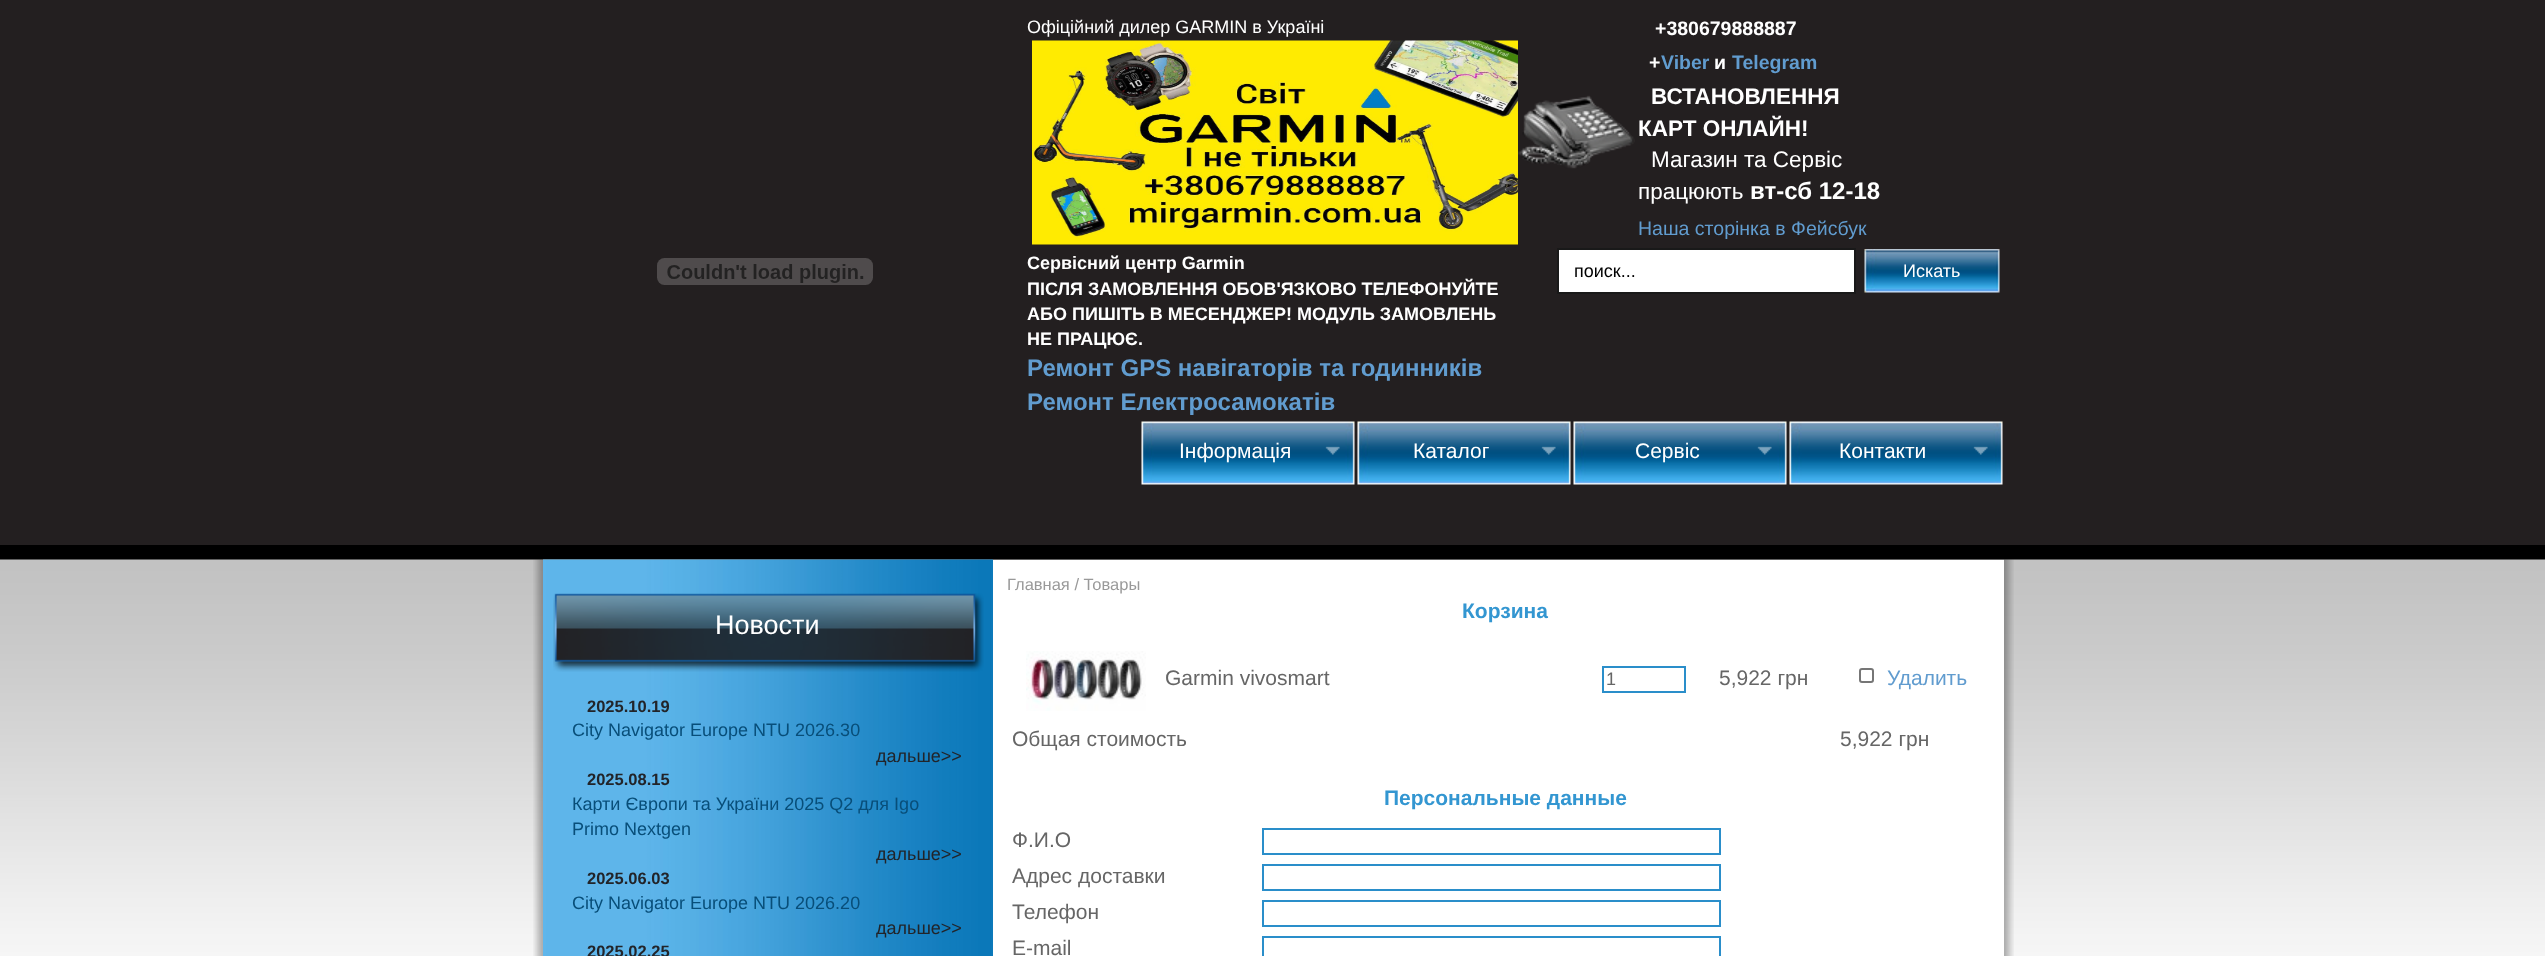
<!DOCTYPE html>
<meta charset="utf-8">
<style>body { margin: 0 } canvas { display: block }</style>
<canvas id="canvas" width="2545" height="956"></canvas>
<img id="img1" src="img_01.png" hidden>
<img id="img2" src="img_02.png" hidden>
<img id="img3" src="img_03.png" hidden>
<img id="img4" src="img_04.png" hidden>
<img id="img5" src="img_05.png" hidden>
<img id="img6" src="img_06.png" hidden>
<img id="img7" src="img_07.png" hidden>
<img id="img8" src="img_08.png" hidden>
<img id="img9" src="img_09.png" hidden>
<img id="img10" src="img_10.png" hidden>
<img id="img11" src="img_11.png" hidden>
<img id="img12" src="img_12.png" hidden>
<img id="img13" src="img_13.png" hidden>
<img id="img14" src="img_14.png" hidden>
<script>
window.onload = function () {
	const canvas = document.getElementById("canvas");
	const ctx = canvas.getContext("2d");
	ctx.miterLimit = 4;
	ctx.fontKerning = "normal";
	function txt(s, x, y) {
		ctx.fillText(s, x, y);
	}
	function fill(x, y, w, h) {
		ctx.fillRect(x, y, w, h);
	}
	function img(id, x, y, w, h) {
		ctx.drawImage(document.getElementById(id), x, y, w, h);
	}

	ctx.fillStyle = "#231F20";
	fill(0, 0, 2545, 956);
	img("img1", 657, 258, 216, 27);
	img("img2", 1032, 40, 486, 205);
	img("img3", 1518, 95, 117, 74);
	ctx.fillStyle = "#FFFFFF";
	ctx.beginPath();
	ctx.rect(1558, 249, 297, 44);
	ctx.fill();
	ctx.strokeStyle = "#191919";
	ctx.lineWidth = 2;
	ctx.stroke();
	img("img4", 1864, 249, 136, 44);
	img("img5", 1141, 421, 214, 64);
	img("img6", 1325, 446, 15, 9);
	img("img5", 1357, 421, 214, 64);
	img("img7", 1541, 446, 15, 9);
	img("img8", 1573, 421, 214, 64);
	img("img7", 1757, 446, 15, 9);
	img("img8", 1789, 421, 214, 64);
	img("img7", 1973, 446, 15, 9);
	ctx.fillStyle = "#000000";
	fill(0, 545, 2545, 15);
	img("img9", 0, 559, 2545, 397);
	img("img10", 533, 559, 10, 397);
	img("img11", 543, 559, 450, 397);
	img("img12", 553, 593, 431, 79);
	ctx.fillStyle = "#FFFFFF";
	fill(993, 560, 1011, 396);
	img("img13", 1026, 651, 120, 60);
	ctx.strokeStyle = "#2A8ECA";
	ctx.strokeRect(1603, 667, 82, 25);
	ctx.beginPath();
	ctx.roundRect(1860, 669, 13, 13, 2);
	ctx.strokeStyle = "#767676";
	ctx.stroke();
	ctx.strokeStyle = "#2A8ECA";
	ctx.strokeRect(1263, 829, 457, 25);
	ctx.strokeRect(1263, 865, 457, 25);
	ctx.strokeRect(1263, 901, 457, 25);
	ctx.strokeRect(1263, 937, 457, 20);
	img("img14", 2004, 559, 10, 397);
	ctx.font = "18px Liberation Sans";
	txt("Офіційний дилер GARMIN в Україні", 1027, 33);
	ctx.font = "bold 18px Liberation Sans";
	txt("Сервісний центр Garmin", 1027, 269);
	txt("ПІСЛЯ ЗАМОВЛЕННЯ ОБОВ'ЯЗКОВО ТЕЛЕФОНУЙТЕ", 1027, 295);
	txt("АБО ПИШІТЬ В МЕСЕНДЖЕР! МОДУЛЬ ЗАМОВЛЕНЬ", 1027, 320);
	txt("НЕ ПРАЦЮЄ.", 1027, 345);
	ctx.font = "bold 24px Liberation Sans";
	ctx.fillStyle = "#619CCF";
	txt("Ремонт GPS навігаторів та годинників", 1027, 376);
	txt("Ремонт Електросамокатів", 1027, 410);
	ctx.font = "bold 19.5px Liberation Sans";
	ctx.fillStyle = "#FFFFFF";
	txt("+380679888887", 1655, 35);
	txt("+", 1649, 69);
	ctx.fillStyle = "#619CCF";
	txt("Viber", 1661, 69);
	ctx.fillStyle = "#FFFFFF";
	txt("и", 1714, 69);
	ctx.fillStyle = "#619CCF";
	txt("Telegram", 1732, 69);
	ctx.font = "bold 22.5px Liberation Sans";
	ctx.fillStyle = "#FFFFFF";
	txt("ВСТАНОВЛЕННЯ", 1651, 104);
	txt("КАРТ ОНЛАЙН!", 1638, 136);
	ctx.font = "22.5px Liberation Sans";
	txt("Магазин та Сервіс", 1651, 167);
	txt("працюють", 1638, 199);
	ctx.font = "bold 24px Liberation Sans";
	txt("вт-сб 12-18", 1750, 199);
	ctx.font = "19.5px Liberation Sans";
	ctx.fillStyle = "#619CCF";
	txt("Наша сторінка в Фейсбук", 1638, 235);
	ctx.font = "18px Liberation Sans";
	ctx.fillStyle = "#000000";
	txt("поиск...", 1574, 277);
	ctx.fillStyle = "#FFFFFF";
	txt("Искать", 1903, 277);
	ctx.font = "21px Liberation Sans";
	txt("Інформація", 1179, 458);
	txt("Каталог", 1413, 458);
	txt("Сервіс", 1635, 458);
	txt("Контакти", 1839, 458);
	ctx.font = "27px Liberation Sans";
	txt("Новости", 715, 634);
	ctx.font = "bold 16.5px Liberation Sans";
	ctx.fillStyle = "#222429";
	txt("2025.10.19", 587, 712);
	ctx.font = "18px Liberation Sans";
	ctx.fillStyle = "#084E79";
	txt("City Navigator Europe NTU 2026.30", 572, 736);
	ctx.fillStyle = "#222429";
	txt("дальше>>", 876, 762);
	ctx.font = "bold 16.5px Liberation Sans";
	txt("2025.08.15", 587, 785);
	ctx.font = "18px Liberation Sans";
	ctx.fillStyle = "#084E79";
	txt("Карти Європи та України 2025 Q2 для Igo", 572, 810);
	txt("Primo Nextgen", 572, 835);
	ctx.fillStyle = "#222429";
	txt("дальше>>", 876, 860);
	ctx.font = "bold 16.5px Liberation Sans";
	txt("2025.06.03", 587, 884);
	ctx.font = "18px Liberation Sans";
	ctx.fillStyle = "#084E79";
	txt("City Navigator Europe NTU 2026.20", 572, 909);
	ctx.fillStyle = "#222429";
	txt("дальше>>", 876, 934);
	ctx.font = "bold 16.5px Liberation Sans";
	txt("2025.02.25", 587, 957);
	ctx.font = "16.5px Liberation Sans";
	ctx.fillStyle = "#999999";
	txt("Главная / Товары", 1007, 590);
	ctx.font = "bold 21px Liberation Sans";
	ctx.fillStyle = "#3396D1";
	txt("Корзина", 1462, 618);
	ctx.font = "21px Liberation Sans";
	ctx.fillStyle = "#666666";
	txt("Garmin vivosmart", 1165, 685);
	ctx.font = "18px Liberation Sans";
	txt("1", 1606, 685);
	ctx.font = "21px Liberation Sans";
	txt("5,922 грн", 1719, 685);
	ctx.fillStyle = "#619CCF";
	txt("Удалить", 1887, 685);
	ctx.fillStyle = "#666666";
	txt("Общая стоимость", 1012, 746);
	txt("5,922 грн", 1840, 746);
	ctx.font = "bold 21px Liberation Sans";
	ctx.fillStyle = "#3396D1";
	txt("Персональные данные", 1384, 805);
	ctx.font = "21px Liberation Sans";
	ctx.fillStyle = "#666666";
	txt("Ф.И.О", 1012, 847);
	txt("Адрес доставки", 1012, 883);
	txt("Телефон", 1012, 919);
	txt("E-mail", 1012, 955);
};
</script>
